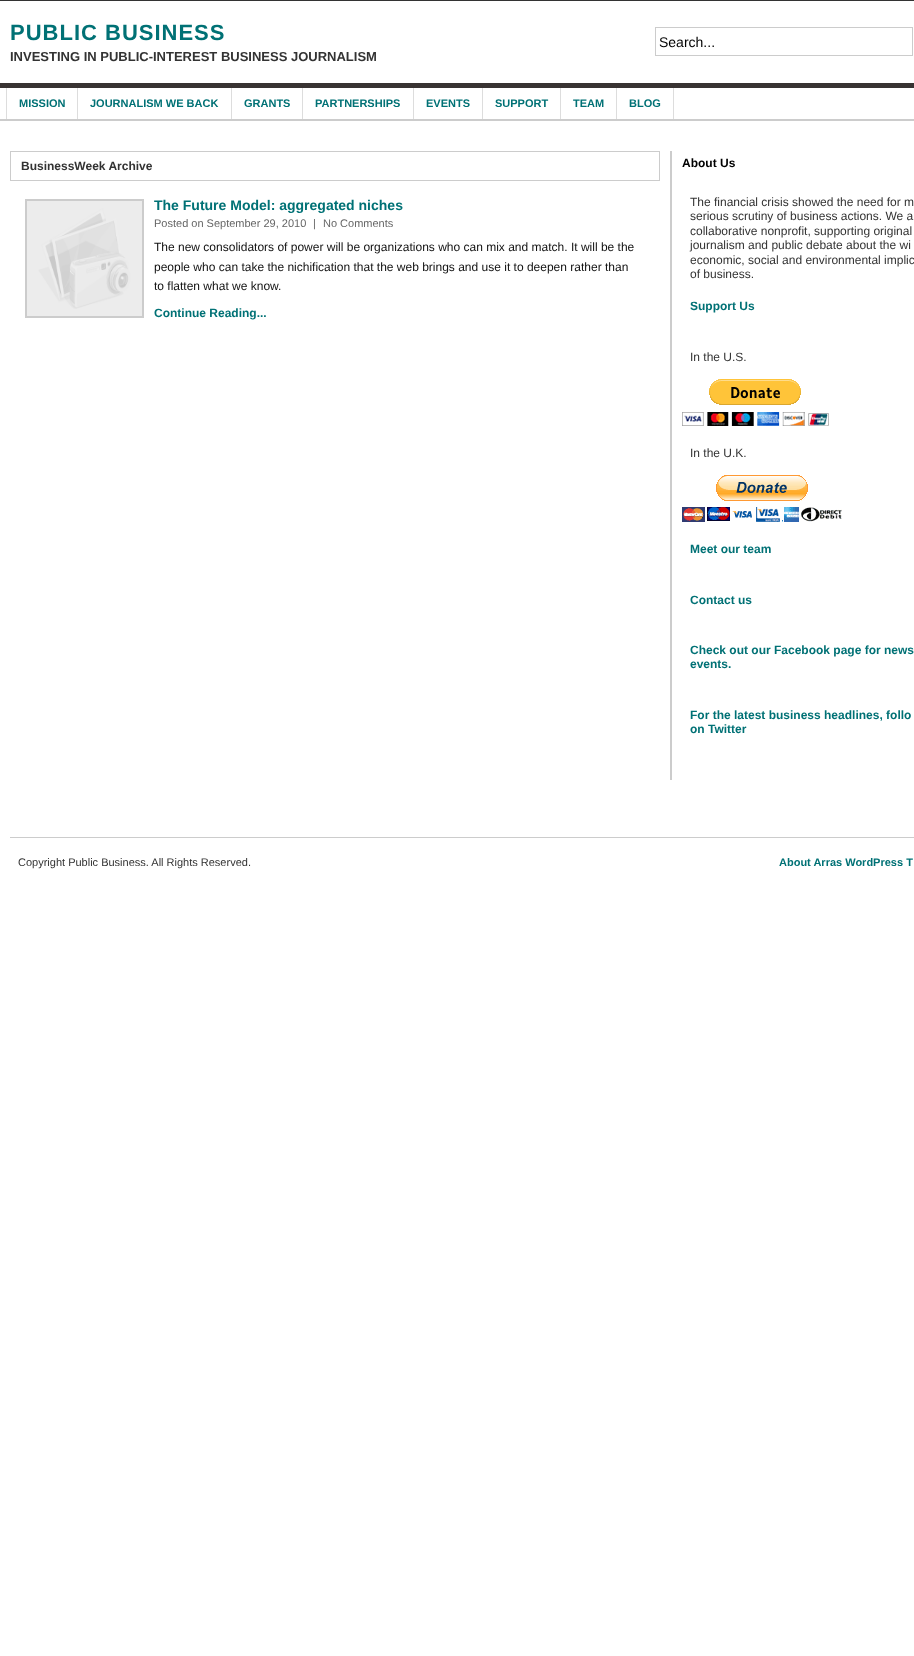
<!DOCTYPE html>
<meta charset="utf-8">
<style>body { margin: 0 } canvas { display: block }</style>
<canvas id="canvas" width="914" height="1656"></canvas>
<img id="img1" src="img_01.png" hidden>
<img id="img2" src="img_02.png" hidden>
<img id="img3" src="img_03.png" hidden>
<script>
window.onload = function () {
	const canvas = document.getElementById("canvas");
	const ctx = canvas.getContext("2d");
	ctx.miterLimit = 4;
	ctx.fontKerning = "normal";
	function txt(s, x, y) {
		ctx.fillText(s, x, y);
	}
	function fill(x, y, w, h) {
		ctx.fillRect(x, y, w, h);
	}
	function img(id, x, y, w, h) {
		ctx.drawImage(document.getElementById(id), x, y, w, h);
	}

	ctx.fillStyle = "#FFFFFF";
	fill(0, 0, 914, 1656);
	ctx.fillStyle = "#333333";
	fill(0, 0, 914, 1);
	ctx.fillStyle = "#383332";
	fill(0, 83, 914, 5);
	ctx.strokeStyle = "#CCCCCC";
	ctx.strokeRect(655.5, 27.5, 257, 28);
	ctx.fillStyle = "#CCCCCC";
	fill(0, 119, 914, 2);
	ctx.fillStyle = "#DDDDDD";
	fill(77, 88, 1, 31);
	fill(6, 88, 1, 31);
	fill(231, 88, 1, 31);
	fill(302, 88, 1, 31);
	fill(413, 88, 1, 31);
	fill(482, 88, 1, 31);
	fill(560, 88, 1, 31);
	fill(616, 88, 1, 31);
	fill(673, 88, 1, 31);
	ctx.strokeRect(10.5, 151.5, 649, 29);
	ctx.lineWidth = 2;
	ctx.strokeRect(26, 200, 117, 117);
	img("img1", 27, 201, 115, 115);
	ctx.fillStyle = "#CCCCCC";
	fill(670, 151, 2, 629);
	img("img2", 682, 379, 147, 47);
	img("img3", 682, 475, 160, 47);
	fill(10, 837, 904, 1);
	ctx.letterSpacing = "1px";
	ctx.font = "bold 22px Liberation Sans";
	ctx.fillStyle = "#007175";
	txt("PUBLIC BUSINESS", 10, 40);
	ctx.letterSpacing = "0px";
	ctx.font = "bold 13px Liberation Sans";
	ctx.fillStyle = "#333333";
	txt("INVESTING IN PUBLIC-INTEREST BUSINESS JOURNALISM", 10, 61);
	ctx.font = "14px Liberation Sans";
	ctx.fillStyle = "#000000";
	txt("Search...", 659, 47);
	ctx.font = "bold 11px Liberation Sans";
	ctx.fillStyle = "#007175";
	txt("MISSION", 19, 107);
	txt("JOURNALISM WE BACK", 90, 107);
	txt("GRANTS", 244, 107);
	txt("PARTNERSHIPS", 315, 107);
	txt("EVENTS", 426, 107);
	txt("SUPPORT", 495, 107);
	txt("TEAM", 573, 107);
	txt("BLOG", 629, 107);
	ctx.font = "bold 12px Liberation Sans";
	ctx.fillStyle = "#333333";
	txt("BusinessWeek Archive", 21, 170);
	ctx.font = "bold 14px Liberation Sans";
	ctx.fillStyle = "#007175";
	txt("The Future Model: aggregated niches", 154, 210);
	ctx.font = "11px Liberation Sans";
	ctx.fillStyle = "#666666";
	txt("Posted on September 29, 2010", 154, 227);
	txt("|", 313, 227);
	txt("No Comments", 323, 227);
	ctx.font = "12px Liberation Sans";
	ctx.fillStyle = "#111111";
	txt("The new consolidators of power will be organizations who can mix and match. It will be the", 154, 251);
	txt("people who can take the nichification that the web brings and use it to deepen rather than", 154, 271);
	txt("to flatten what we know.", 154, 290);
	ctx.font = "bold 12px Liberation Sans";
	ctx.fillStyle = "#007175";
	txt("Continue Reading...", 154, 317);
	ctx.fillStyle = "#000000";
	txt("About Us", 682, 167);
	ctx.font = "12px Liberation Sans";
	ctx.fillStyle = "#333333";
	txt("The financial crisis showed the need for m", 690, 206);
	txt("serious scrutiny of business actions. We a", 690, 220);
	txt("collaborative nonprofit, supporting original", 690, 235);
	txt("journalism and public debate about the wi", 690, 249);
	txt("economic, social and environmental implic", 690, 264);
	txt("of business.", 690, 278);
	ctx.font = "bold 12px Liberation Sans";
	ctx.fillStyle = "#007175";
	txt("Support Us", 690, 310);
	ctx.font = "12px Liberation Sans";
	ctx.fillStyle = "#333333";
	txt("In the U.S.", 690, 361);
	txt("In the U.K.", 690, 457);
	ctx.font = "bold 12px Liberation Sans";
	ctx.fillStyle = "#007175";
	txt("Meet our team", 690, 553);
	txt("Contact us", 690, 604);
	txt("Check out our Facebook page for news", 690, 654);
	txt("events.", 690, 668);
	txt("For the latest business headlines, follo", 690, 719);
	txt("on Twitter", 690, 733);
	ctx.font = "11px Liberation Sans";
	ctx.fillStyle = "#333333";
	txt("Copyright Public Business. All Rights Reserved.", 18, 866);
	ctx.font = "bold 11px Liberation Sans";
	ctx.fillStyle = "#007175";
	txt("About Arras WordPress T", 779, 866);
};
</script>
